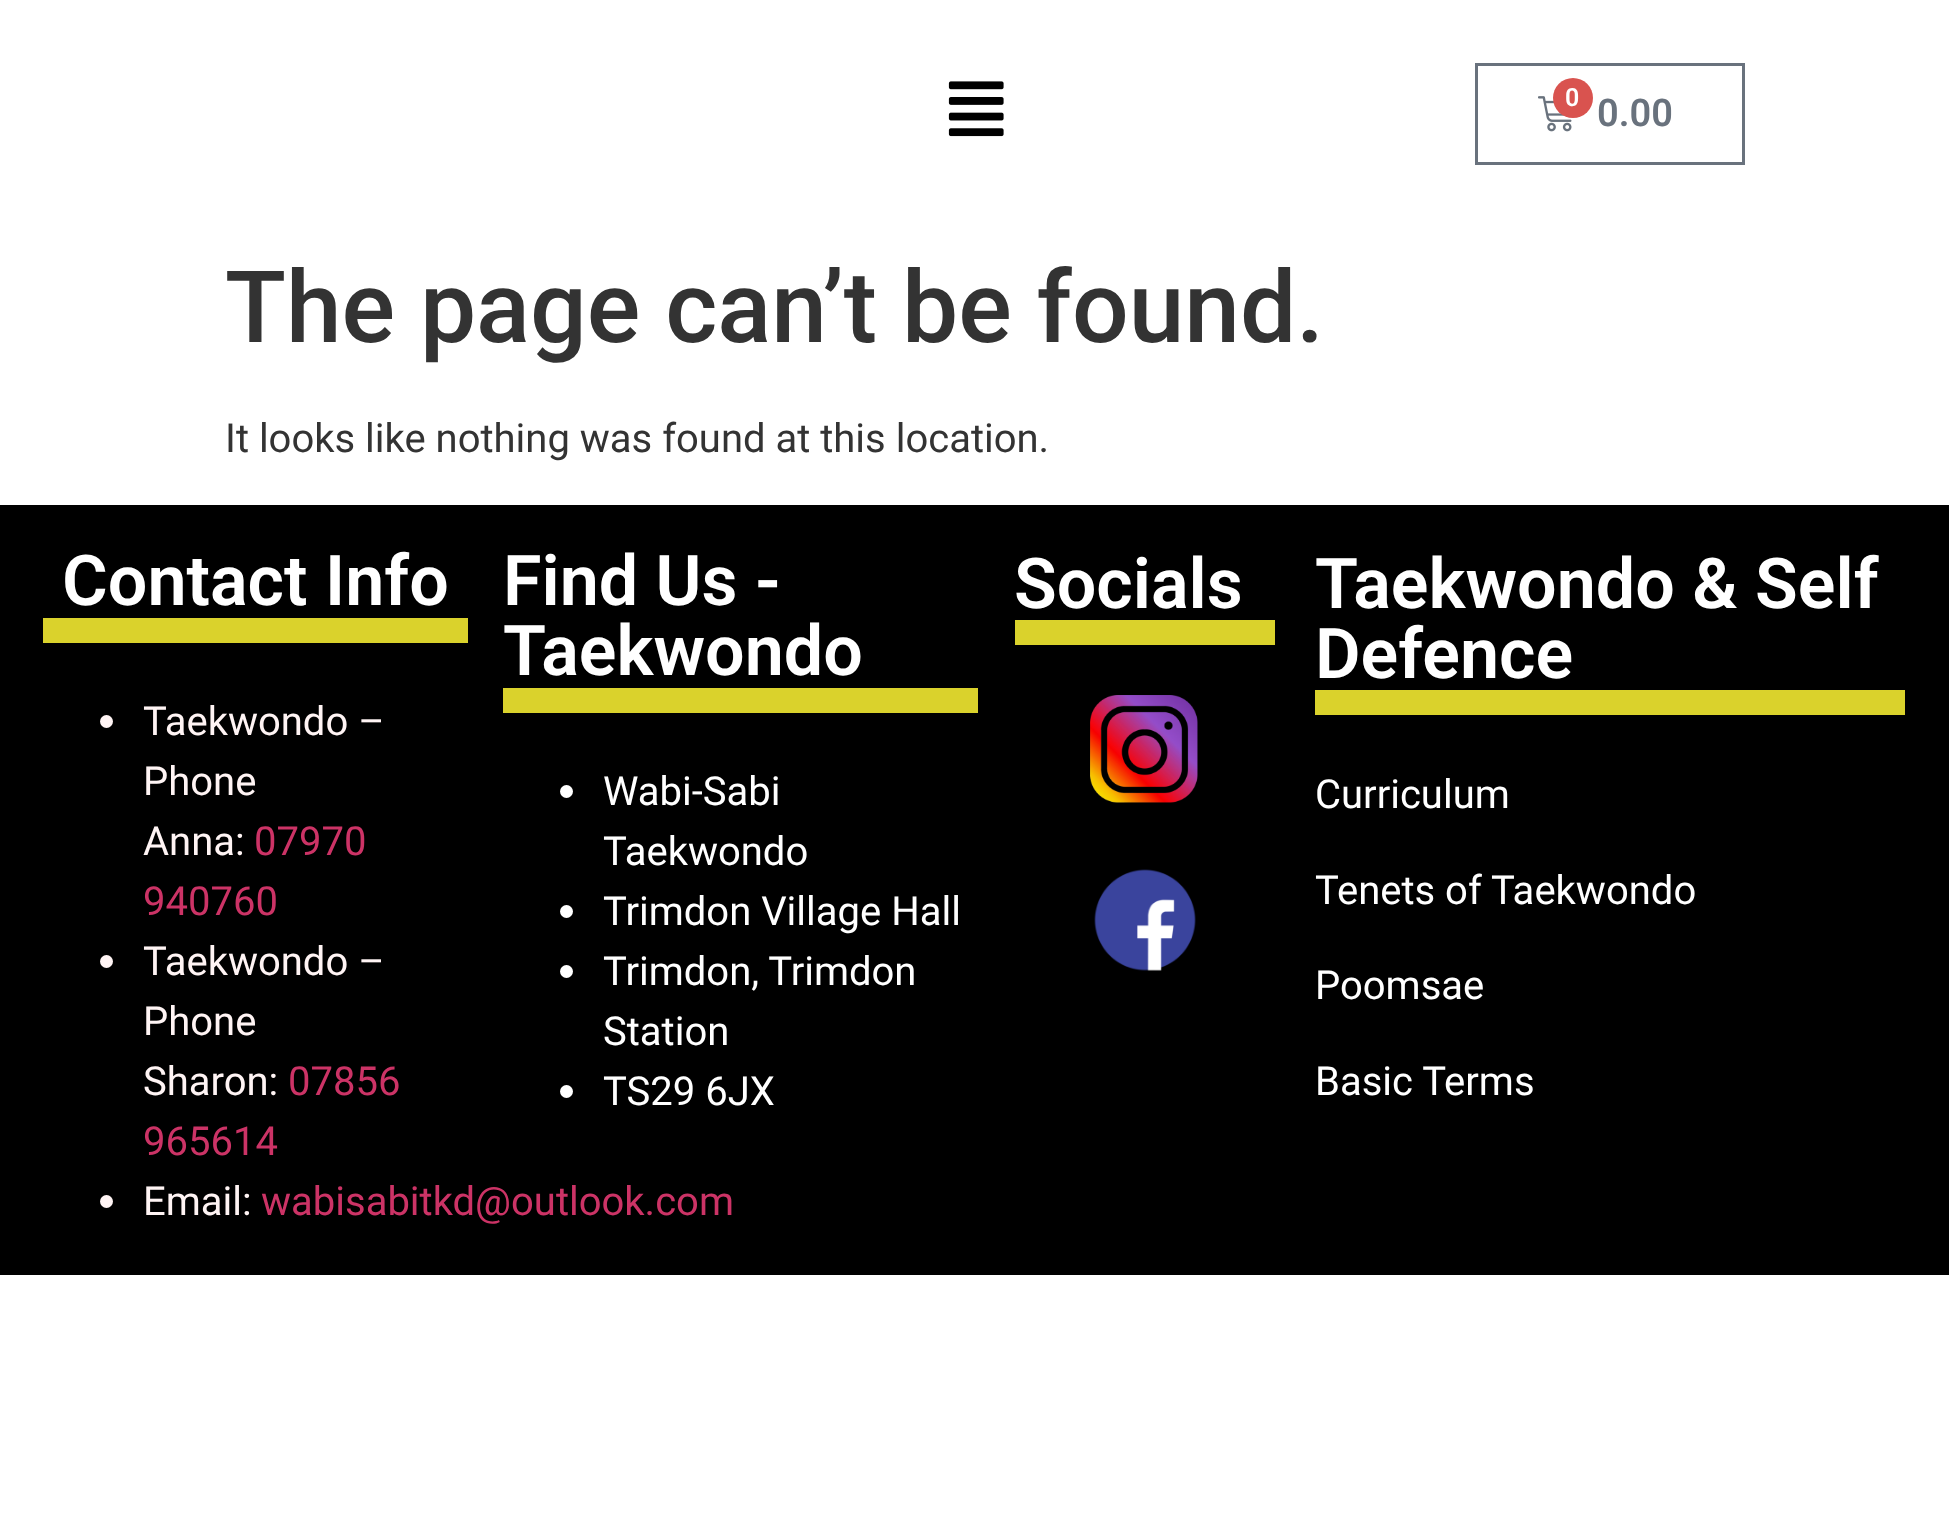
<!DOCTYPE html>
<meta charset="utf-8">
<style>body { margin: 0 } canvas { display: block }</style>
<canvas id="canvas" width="1949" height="1524"></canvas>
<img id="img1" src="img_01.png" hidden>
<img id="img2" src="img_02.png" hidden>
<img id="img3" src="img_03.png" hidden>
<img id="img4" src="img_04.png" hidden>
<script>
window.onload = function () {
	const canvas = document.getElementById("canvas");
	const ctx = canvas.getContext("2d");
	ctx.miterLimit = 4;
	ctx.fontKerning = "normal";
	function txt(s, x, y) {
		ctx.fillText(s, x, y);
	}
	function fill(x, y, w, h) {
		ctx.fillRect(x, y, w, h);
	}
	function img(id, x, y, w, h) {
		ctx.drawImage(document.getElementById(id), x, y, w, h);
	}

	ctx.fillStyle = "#FFFFFF";
	fill(0, 0, 1949, 1524);
	img("img1", 948, 81, 56, 56);
	ctx.strokeStyle = "#69727D";
	ctx.lineWidth = 3;
	ctx.strokeRect(1476.5, 64.5, 267, 99);
	img("img2", 1538, 96, 34, 36);
	ctx.fillStyle = "#D9534F";
	ctx.beginPath();
	ctx.arc(1573, 98, 20, 0, Math.PI * 2);
	ctx.fill();
	ctx.fillStyle = "#000000";
	fill(0, 505, 1949, 770);
	ctx.fillStyle = "#DAD22C";
	fill(43, 618, 425, 25);
	ctx.fillStyle = "#FFF4F4";
	ctx.beginPath();
	ctx.arc(106.5, 721.5, 6.5, 0, Math.PI * 2);
	ctx.fill();
	ctx.beginPath();
	ctx.arc(106.5, 961.5, 6.5, 0, Math.PI * 2);
	ctx.fill();
	ctx.beginPath();
	ctx.arc(106.5, 1201.5, 6.5, 0, Math.PI * 2);
	ctx.fill();
	ctx.fillStyle = "#DAD22C";
	fill(503, 688, 475, 25);
	ctx.fillStyle = "#FFFFFF";
	ctx.beginPath();
	ctx.arc(566.5, 791.5, 6.5, 0, Math.PI * 2);
	ctx.fill();
	ctx.beginPath();
	ctx.arc(566.5, 911.5, 6.5, 0, Math.PI * 2);
	ctx.fill();
	ctx.beginPath();
	ctx.arc(566.5, 971.5, 6.5, 0, Math.PI * 2);
	ctx.fill();
	ctx.beginPath();
	ctx.arc(566.5, 1091.5, 6.5, 0, Math.PI * 2);
	ctx.fill();
	ctx.fillStyle = "#DAD22C";
	fill(1015, 620, 260, 25);
	img("img3", 1090, 695, 108, 108);
	img("img4", 1094, 869, 102, 102);
	fill(1315, 690, 590, 25);
	ctx.font = "600 25px Roboto";
	ctx.fillStyle = "#FFFFFF";
	txt("0", 1565, 106);
	ctx.font = "600 38px Roboto";
	ctx.fillStyle = "#69727D";
	txt("0.00", 1597, 126);
	ctx.font = "500 100px Roboto";
	ctx.fillStyle = "#333333";
	txt("The page can’t be found.", 225, 342);
	ctx.font = "40px Roboto";
	txt("It looks like nothing was found at this location.", 225, 452);
	ctx.font = "600 70px Roboto";
	ctx.fillStyle = "#FFFFFF";
	txt("Contact Info", 62, 605);
	ctx.font = "40px Roboto";
	ctx.fillStyle = "#FFF4F4";
	txt("Taekwondo –", 143, 735);
	txt("Phone", 143, 795);
	txt("Anna:", 143, 855);
	ctx.fillStyle = "#CC3366";
	txt("07970", 254, 855);
	txt("940760", 143, 915);
	ctx.fillStyle = "#FFF4F4";
	txt("Taekwondo –", 143, 975);
	txt("Phone", 143, 1035);
	txt("Sharon:", 143, 1095);
	ctx.fillStyle = "#CC3366";
	txt("07856", 288, 1095);
	txt("965614", 143, 1155);
	ctx.fillStyle = "#FFF4F4";
	txt("Email:", 143, 1215);
	ctx.fillStyle = "#CC3366";
	txt("wabisabitkd@outlook.com", 261, 1215);
	ctx.font = "600 70px Roboto";
	ctx.fillStyle = "#FFFFFF";
	txt("Find Us -", 503, 605);
	txt("Taekwondo", 503, 675);
	ctx.font = "40px Roboto";
	txt("Wabi-Sabi", 603, 805);
	txt("Taekwondo", 603, 865);
	txt("Trimdon Village Hall", 603, 925);
	txt("Trimdon, Trimdon", 603, 985);
	txt("Station", 603, 1045);
	txt("TS29 6JX", 603, 1105);
	ctx.font = "600 70px Roboto";
	txt("Socials", 1014, 608);
	txt("Taekwondo & Self", 1315, 608);
	txt("Defence", 1315, 678);
	ctx.font = "40px Roboto";
	txt("Curriculum", 1315, 808);
	txt("Tenets of Taekwondo", 1315, 904);
	txt("Poomsae", 1315, 999);
	txt("Basic Terms", 1315, 1095);
};
</script>
